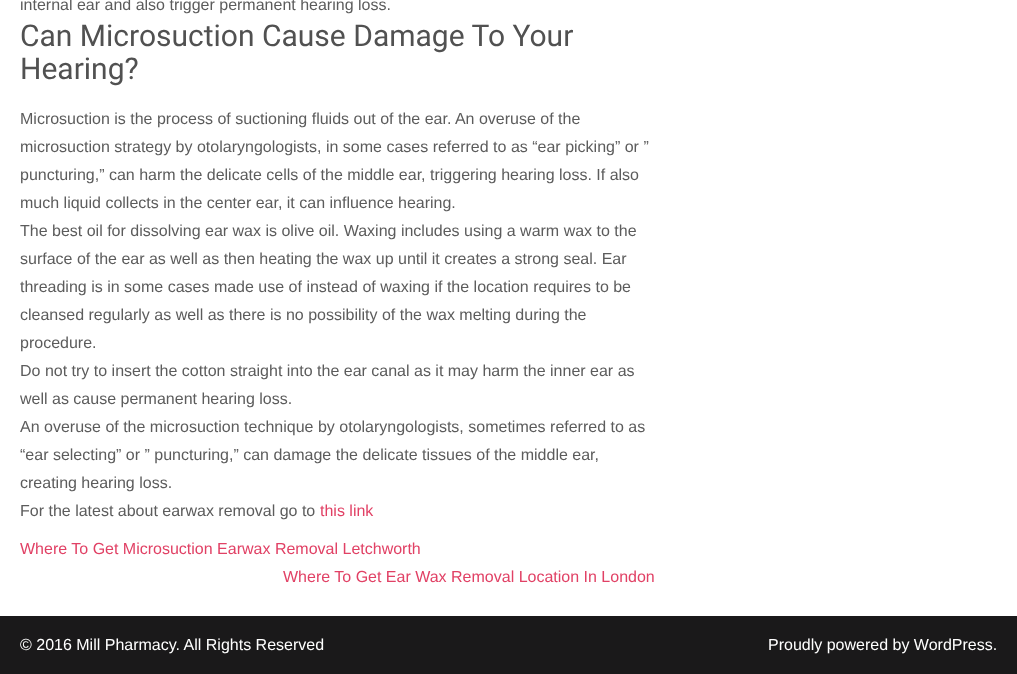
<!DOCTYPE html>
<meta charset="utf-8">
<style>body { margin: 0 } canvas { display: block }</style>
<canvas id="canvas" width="1017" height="674"></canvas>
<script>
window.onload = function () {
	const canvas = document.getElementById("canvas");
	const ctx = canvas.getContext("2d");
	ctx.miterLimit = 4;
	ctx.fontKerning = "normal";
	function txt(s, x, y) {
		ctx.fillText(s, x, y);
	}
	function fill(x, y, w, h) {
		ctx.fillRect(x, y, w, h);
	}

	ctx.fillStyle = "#FFFFFF";
	fill(0, 0, 1017, 674);
	ctx.fillStyle = "#1A191A";
	fill(0, 616, 1017, 58);
	ctx.font = "16px Liberation Sans";
	ctx.fillStyle = "#5C5C5C";
	txt("internal ear and also trigger permanent hearing loss.", 20, 10);
	ctx.font = "30px Roboto";
	ctx.fillStyle = "#515151";
	txt("Can Microsuction Cause Damage To Your", 20, 46);
	txt("Hearing?", 20, 79);
	ctx.font = "16px Liberation Sans";
	ctx.fillStyle = "#5C5C5C";
	txt("Microsuction is the process of suctioning fluids out of the ear. An overuse of the", 20, 124);
	txt("microsuction strategy by otolaryngologists, in some cases referred to as “ear picking” or ”", 20, 152);
	txt("puncturing,” can harm the delicate cells of the middle ear, triggering hearing loss. If also", 20, 180);
	txt("much liquid collects in the center ear, it can influence hearing.", 20, 208);
	txt("The best oil for dissolving ear wax is olive oil. Waxing includes using a warm wax to the", 20, 236);
	txt("surface of the ear as well as then heating the wax up until it creates a strong seal. Ear", 20, 264);
	txt("threading is in some cases made use of instead of waxing if the location requires to be", 20, 292);
	txt("cleansed regularly as well as there is no possibility of the wax melting during the", 20, 320);
	txt("procedure.", 20, 348);
	txt("Do not try to insert the cotton straight into the ear canal as it may harm the inner ear as", 20, 376);
	txt("well as cause permanent hearing loss.", 20, 404);
	txt("An overuse of the microsuction technique by otolaryngologists, sometimes referred to as", 20, 432);
	txt("“ear selecting” or ” puncturing,” can damage the delicate tissues of the middle ear,", 20, 460);
	txt("creating hearing loss.", 20, 488);
	txt("For the latest about earwax removal go to", 20, 516);
	ctx.fillStyle = "#E14165";
	txt("this link", 320, 516);
	txt("Where To Get Microsuction Earwax Removal Letchworth", 20, 554);
	txt("Where To Get Ear Wax Removal Location In London", 283, 582);
	ctx.fillStyle = "#FFFFFF";
	txt("© 2016 Mill Pharmacy. All Rights Reserved", 20, 650);
	txt("Proudly powered by WordPress.", 768, 650);
};
</script>
